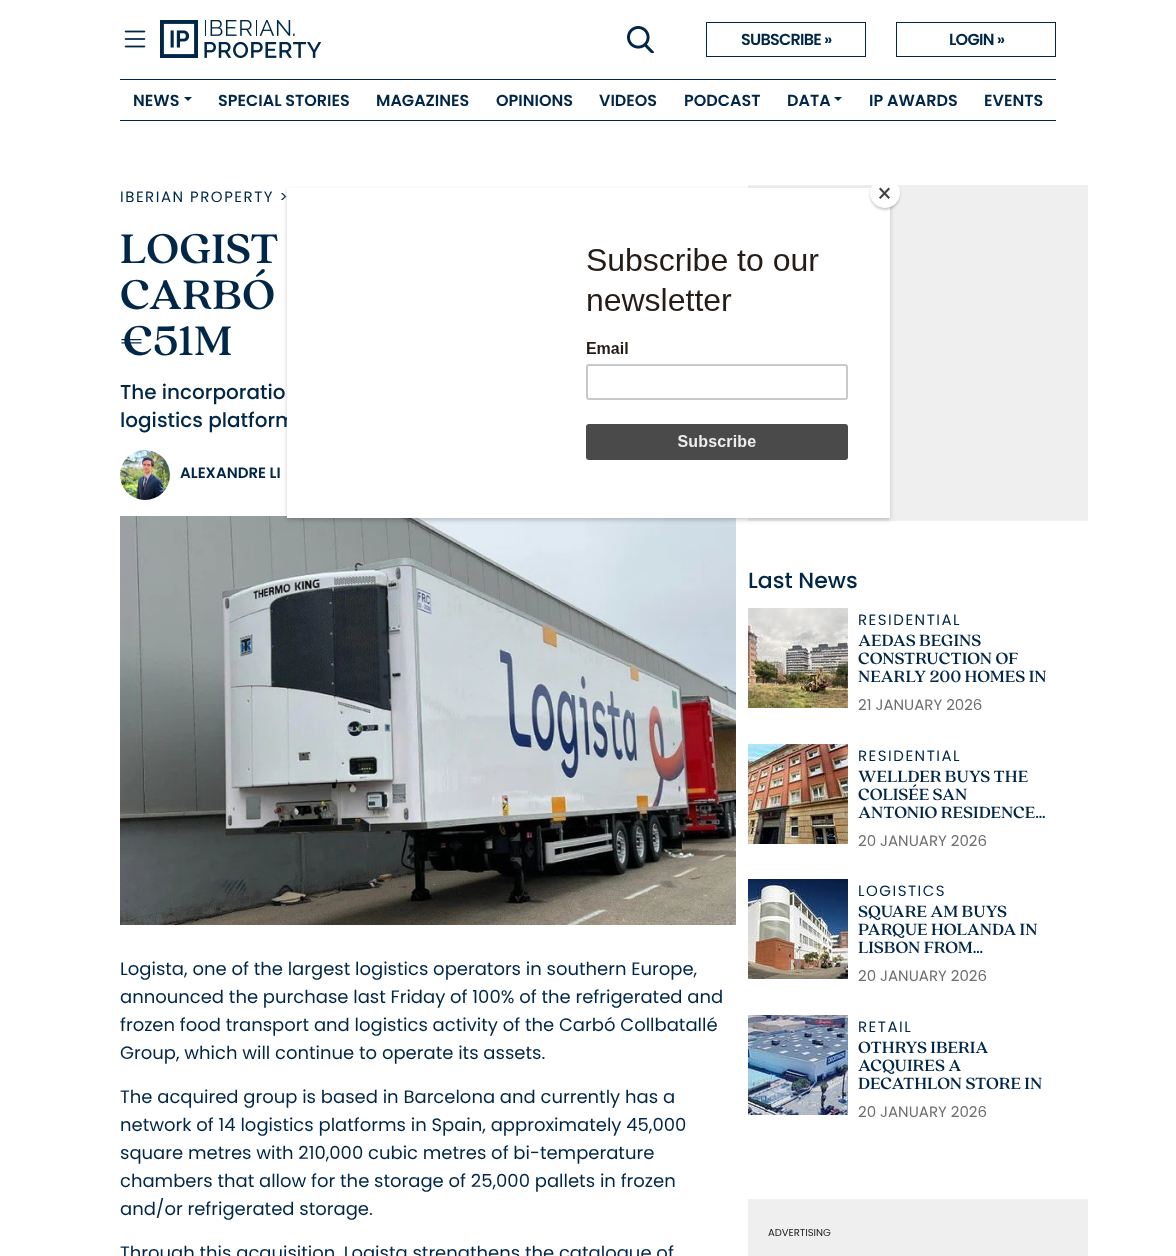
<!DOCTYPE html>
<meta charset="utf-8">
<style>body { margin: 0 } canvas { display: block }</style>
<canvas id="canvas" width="1176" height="1256"></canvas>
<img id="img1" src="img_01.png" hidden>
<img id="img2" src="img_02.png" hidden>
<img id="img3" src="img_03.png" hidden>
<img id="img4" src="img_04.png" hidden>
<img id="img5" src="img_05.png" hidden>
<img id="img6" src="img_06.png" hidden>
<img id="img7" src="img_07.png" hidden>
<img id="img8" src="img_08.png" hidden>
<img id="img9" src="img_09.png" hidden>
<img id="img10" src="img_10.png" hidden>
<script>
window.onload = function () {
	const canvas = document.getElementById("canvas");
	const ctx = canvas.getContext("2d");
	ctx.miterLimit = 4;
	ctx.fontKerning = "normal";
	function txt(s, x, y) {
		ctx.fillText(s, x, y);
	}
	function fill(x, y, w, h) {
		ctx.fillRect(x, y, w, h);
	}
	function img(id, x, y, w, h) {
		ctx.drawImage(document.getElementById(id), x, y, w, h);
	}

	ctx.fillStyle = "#FFFFFF";
	fill(0, 0, 1176, 1256);
	ctx.fillStyle = "#002648";
	fill(120, 79, 936, 1);
	img("img1", 124, 30, 22, 18);
	img("img2", 160, 20, 161, 38);
	img("img3", 627, 26, 27, 27);
	ctx.strokeStyle = "#002648";
	ctx.strokeRect(706.5, 22.5, 159, 34);
	ctx.strokeRect(896.5, 22.5, 159, 34);
	fill(120, 120, 936, 1);
	ctx.beginPath();
	ctx.moveTo(184, 97);
	ctx.lineTo(192, 97);
	ctx.lineTo(188, 101);
	ctx.closePath();
	ctx.fill();
	ctx.beginPath();
	ctx.moveTo(834, 97);
	ctx.lineTo(842, 97);
	ctx.lineTo(838, 101);
	ctx.closePath();
	ctx.fill();
	img("img4", 120, 450, 50, 50);
	img("img5", 120, 516, 616, 409);
	ctx.fillStyle = "#EFEFEF";
	fill(748, 185, 340, 336);
	img("img6", 748, 608, 100, 100);
	img("img7", 748, 744, 100, 100);
	img("img8", 748, 879, 100, 100);
	img("img9", 748, 1015, 100, 100);
	fill(748, 1199, 340, 57);
	ctx.fillStyle = "rgba(0, 0, 0, 0.2)";
	ctx.filter = "blur(2px)";
	ctx.beginPath();
	ctx.rect(287, 190, 603, 330);
	ctx.fill();
	ctx.filter = "none";
	ctx.letterSpacing = "-0.75px";
	ctx.font = "600 16px Poppins";
	ctx.fillStyle = "#002648";
	txt("SUBSCRIBE »", 741, 45);
	txt("LOGIN »", 949, 45);
	ctx.letterSpacing = "0px";
	txt("NEWS", 133, 106);
	txt("SPECIAL STORIES", 218, 106);
	txt("MAGAZINES", 376, 106);
	txt("OPINIONS", 496, 106);
	txt("VIDEOS", 599, 106);
	txt("PODCAST", 684, 106);
	txt("DATA", 787, 106);
	txt("IP AWARDS", 869, 106);
	txt("EVENTS", 984, 106);
	ctx.letterSpacing = "1.5px";
	ctx.font = "15px Poppins";
	txt("IBERIAN PROPERTY >", 120, 202);
	ctx.letterSpacing = "0px";
	ctx.font = "500 46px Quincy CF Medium";
	txt("LOGIST", 120, 263);
	txt("CARBÓ", 120, 309);
	txt("€51M", 120, 355);
	ctx.font = "500 20px Poppins";
	txt("The incorporatio", 120, 399);
	txt("logistics platform", 120, 427);
	ctx.font = "600 15px Poppins";
	txt("ALEXANDRE LI", 180, 478);
	ctx.font = "18px Poppins";
	txt("Logista, one of the largest logistics operators in southern Europe,", 120, 975);
	txt("announced the purchase last Friday of 100% of the refrigerated and", 120, 1003);
	txt("frozen food transport and logistics activity of the Carbó Collbatallé", 120, 1031);
	txt("Group, which will continue to operate its assets.", 120, 1059);
	txt("The acquired group is based in Barcelona and currently has a", 120, 1103);
	txt("network of 14 logistics platforms in Spain, approximately 45,000", 120, 1131);
	txt("square metres with 210,000 cubic metres of bi-temperature", 120, 1159);
	txt("chambers that allow for the storage of 25,000 pallets in frozen", 120, 1187);
	txt("and/or refrigerated storage.", 120, 1215);
	txt("Through this acquisition, Logista strengthens the catalogue of", 120, 1259);
	ctx.font = "500 22px Poppins";
	txt("Last News", 748, 588);
	ctx.letterSpacing = "1.5px";
	ctx.font = "15px Poppins";
	txt("RESIDENTIAL", 858, 625);
	ctx.letterSpacing = "0px";
	ctx.font = "500 18px Quincy CF Medium";
	txt("AEDAS BEGINS", 858, 646);
	txt("CONSTRUCTION OF", 858, 664);
	txt("NEARLY 200 HOMES IN", 858, 682);
	ctx.font = "15px Poppins";
	ctx.fillStyle = "#6F6F6F";
	txt("21 JANUARY 2026", 858, 710);
	ctx.letterSpacing = "1.5px";
	ctx.fillStyle = "#002648";
	txt("RESIDENTIAL", 858, 761);
	ctx.letterSpacing = "0px";
	ctx.font = "500 18px Quincy CF Medium";
	txt("WELLDER BUYS THE", 858, 782);
	txt("COLISÉE SAN", 858, 800);
	txt("ANTONIO RESIDENCE…", 858, 818);
	ctx.font = "15px Poppins";
	ctx.fillStyle = "#6F6F6F";
	txt("20 JANUARY 2026", 858, 846);
	ctx.letterSpacing = "1.5px";
	ctx.fillStyle = "#002648";
	txt("LOGISTICS", 858, 896);
	ctx.letterSpacing = "0px";
	ctx.font = "500 18px Quincy CF Medium";
	txt("SQUARE AM BUYS", 858, 917);
	txt("PARQUE HOLANDA IN", 858, 935);
	txt("LISBON FROM…", 858, 953);
	ctx.font = "15px Poppins";
	ctx.fillStyle = "#6F6F6F";
	txt("20 JANUARY 2026", 858, 981);
	ctx.letterSpacing = "1.5px";
	ctx.fillStyle = "#002648";
	txt("RETAIL", 858, 1032);
	ctx.letterSpacing = "0px";
	ctx.font = "500 18px Quincy CF Medium";
	txt("OTHRYS IBERIA", 858, 1053);
	txt("ACQUIRES A", 858, 1071);
	txt("DECATHLON STORE IN", 858, 1089);
	ctx.font = "15px Poppins";
	ctx.fillStyle = "#6F6F6F";
	txt("20 JANUARY 2026", 858, 1117);
	ctx.font = "10px Poppins";
	ctx.fillStyle = "#222222";
	txt("ADVERTISING", 768, 1236);
	img("img10", 287, 188, 603, 330);
	ctx.fillStyle = "rgba(0, 0, 0, 0.2)";
	ctx.filter = "blur(1px)";
	ctx.beginPath();
	ctx.roundRect(870, 180, 30, 30, 15);
	ctx.fill();
	ctx.filter = "none";
	ctx.fillStyle = "#FFFFFF";
	ctx.beginPath();
	ctx.arc(885, 193, 15, 0, Math.PI * 2);
	ctx.fill();
	ctx.fillStyle = "#414141";
	ctx.beginPath();
	ctx.moveTo(888.5, 187.5);
	ctx.lineTo(890, 189);
	ctx.lineTo(880.5, 199);
	ctx.lineTo(879, 197.5);
	ctx.closePath();
	ctx.fill();
	ctx.beginPath();
	ctx.moveTo(879, 189);
	ctx.lineTo(880.5, 187.5);
	ctx.lineTo(890, 197.5);
	ctx.lineTo(888.5, 199);
	ctx.closePath();
	ctx.fill();
};
</script>
